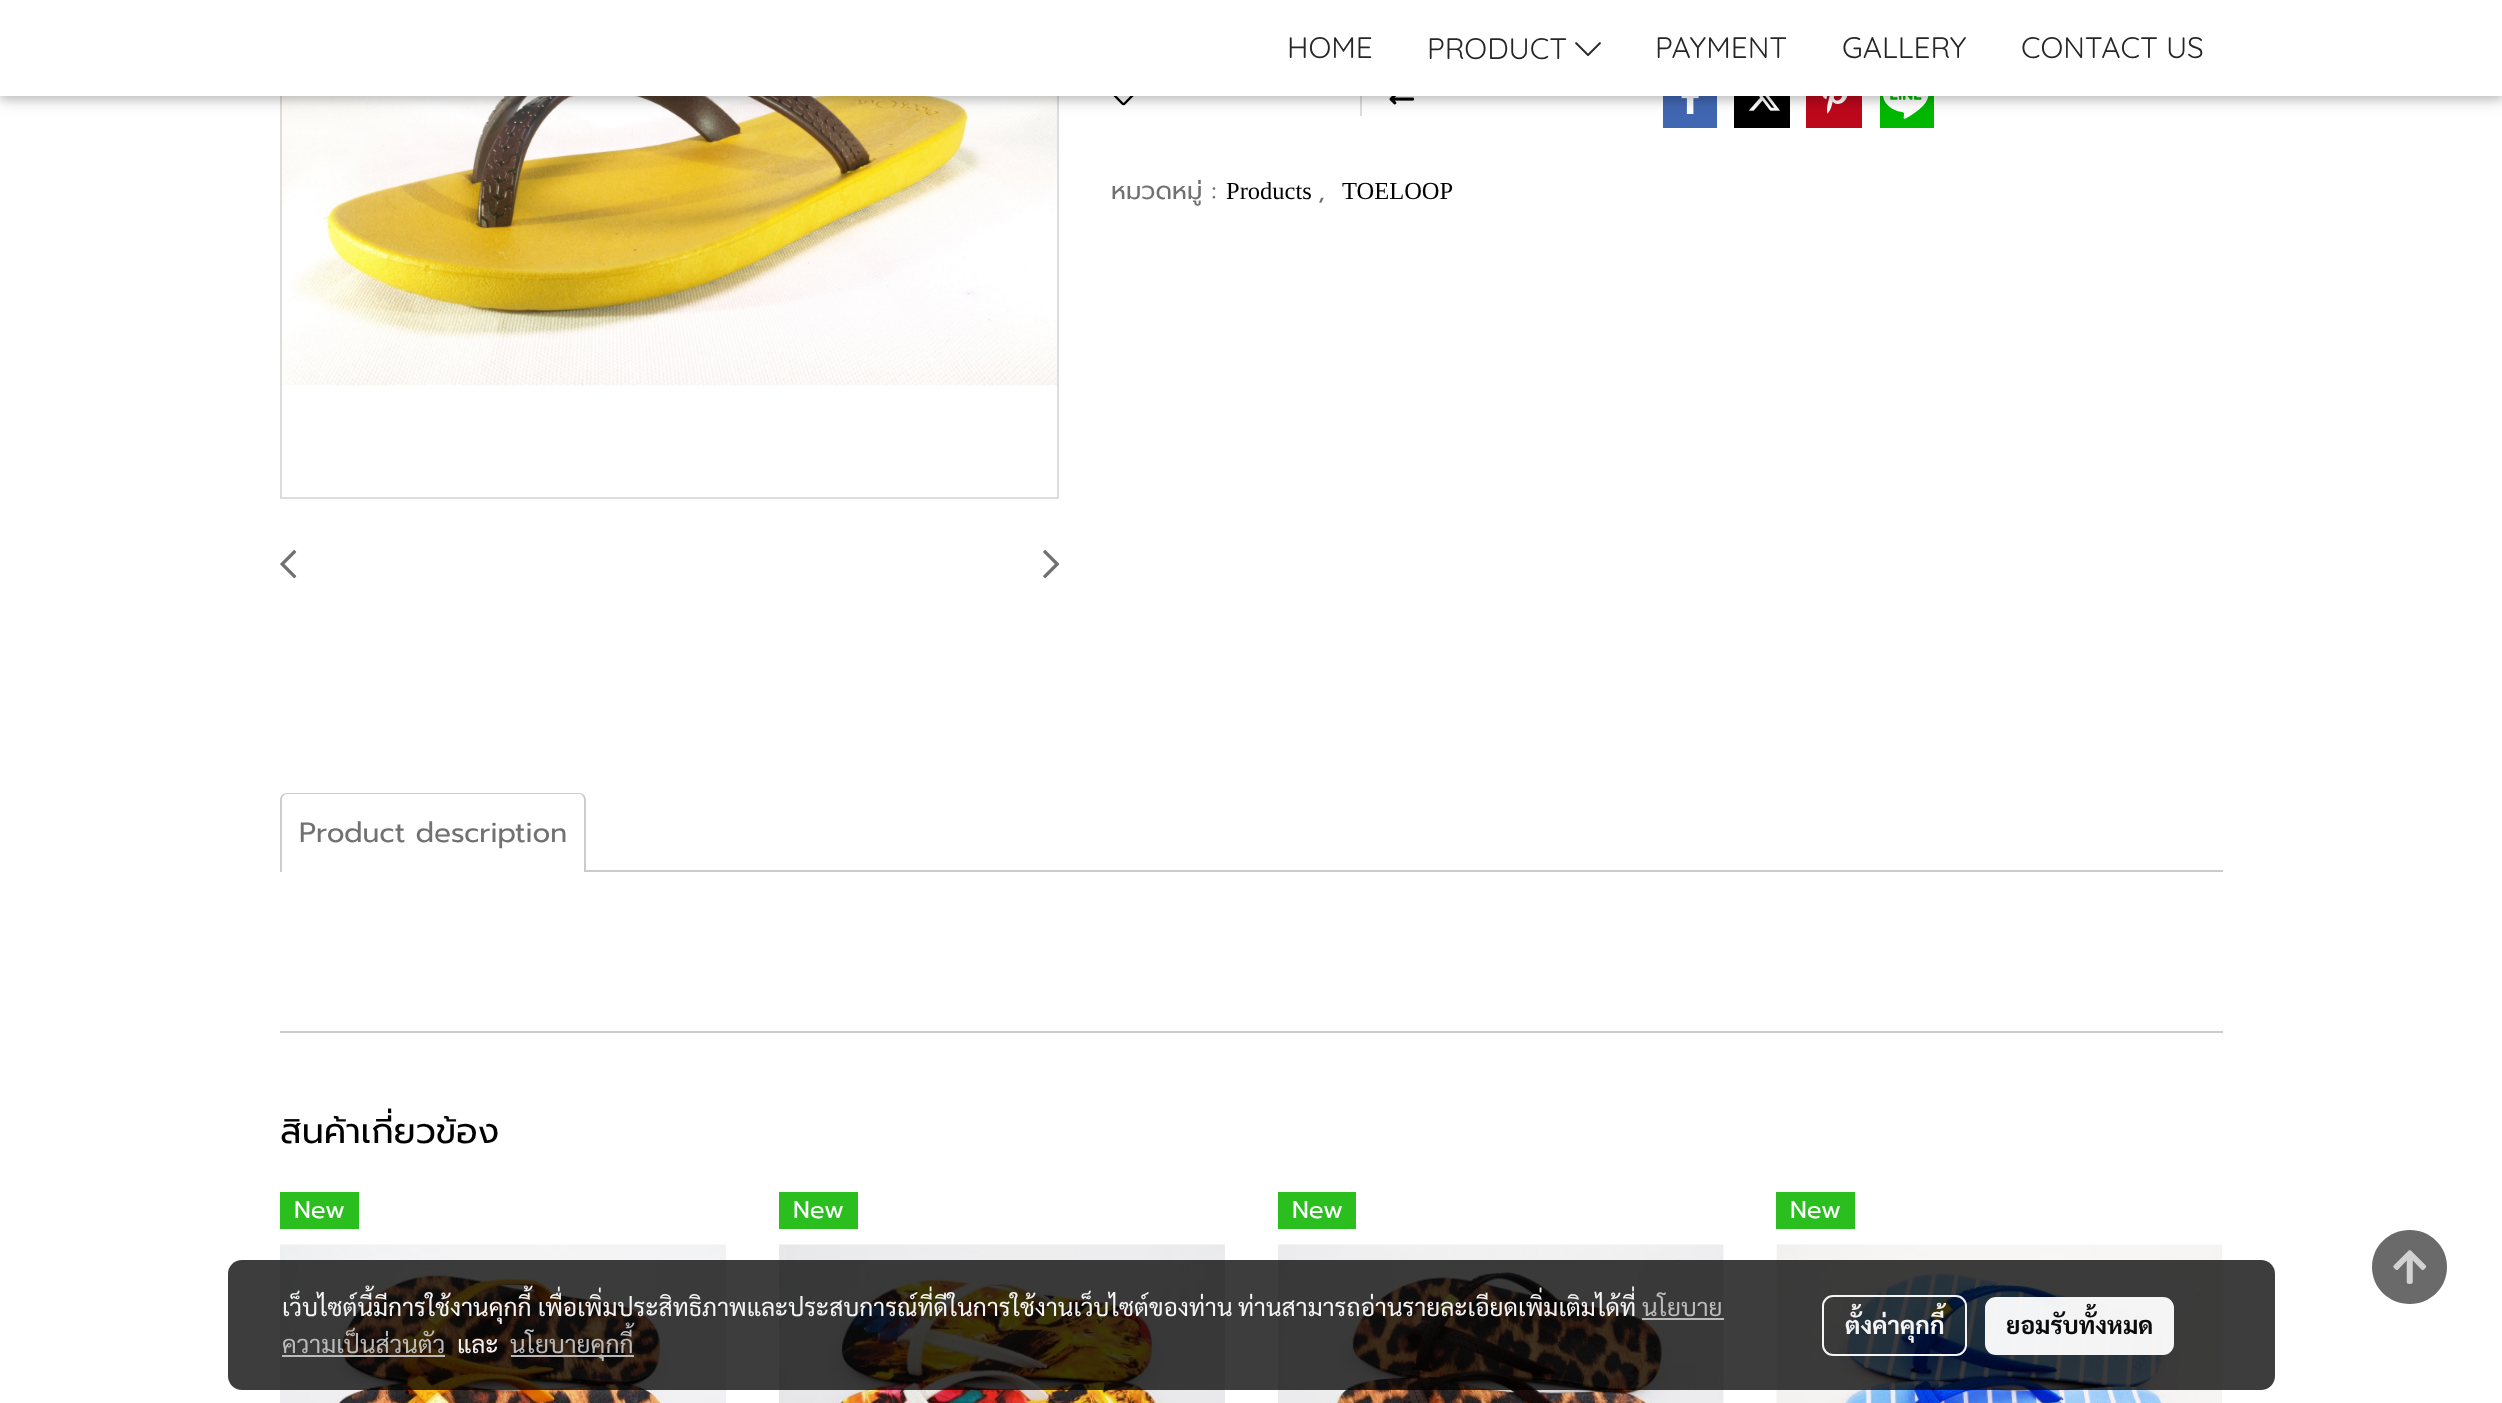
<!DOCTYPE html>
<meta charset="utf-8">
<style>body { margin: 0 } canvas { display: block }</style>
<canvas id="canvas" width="2502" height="1403"></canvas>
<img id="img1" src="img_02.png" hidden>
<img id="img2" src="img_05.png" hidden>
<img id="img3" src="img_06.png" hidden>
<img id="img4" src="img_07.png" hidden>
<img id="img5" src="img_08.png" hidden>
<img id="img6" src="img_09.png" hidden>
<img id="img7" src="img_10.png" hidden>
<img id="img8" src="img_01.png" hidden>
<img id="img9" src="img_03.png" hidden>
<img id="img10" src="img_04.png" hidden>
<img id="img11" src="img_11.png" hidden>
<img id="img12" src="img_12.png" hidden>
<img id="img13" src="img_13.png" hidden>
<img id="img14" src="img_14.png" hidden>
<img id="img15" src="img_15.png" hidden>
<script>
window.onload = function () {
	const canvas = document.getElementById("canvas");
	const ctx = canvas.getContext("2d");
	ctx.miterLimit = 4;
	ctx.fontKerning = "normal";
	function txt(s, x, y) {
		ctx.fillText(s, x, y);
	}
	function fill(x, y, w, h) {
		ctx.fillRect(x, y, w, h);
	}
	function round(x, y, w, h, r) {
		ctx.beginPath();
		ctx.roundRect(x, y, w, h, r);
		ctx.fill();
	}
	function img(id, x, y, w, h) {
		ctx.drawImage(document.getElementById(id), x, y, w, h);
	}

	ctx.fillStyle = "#FFFFFF";
	fill(0, 0, 2502, 1403);
	ctx.strokeStyle = "#DDDDDD";
	ctx.lineWidth = 2;
	ctx.strokeRect(281, -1, 777, 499);
	img("img1", 282, 96, 775, 290);
	img("img2", 1113, 96, 21, 10);
	ctx.fillStyle = "#DEDEDE";
	fill(1360, 96, 2, 20);
	img("img3", 1389, 96, 25, 9);
	ctx.fillStyle = "#4267B2";
	fill(1663, 96, 54, 32);
	img("img4", 1681, 96, 18, 18);
	ctx.fillStyle = "#000000";
	fill(1734, 96, 56, 32);
	img("img5", 1748, 96, 32, 15);
	ctx.fillStyle = "#BD081C";
	fill(1806, 96, 56, 32);
	img("img6", 1822, 96, 26, 18);
	ctx.fillStyle = "#00B800";
	fill(1880, 96, 54, 32);
	img("img7", 1883, 96, 46, 23);
	ctx.fillStyle = "rgba(0, 0, 0, 0.12)";
	ctx.filter = "blur(9px)";
	ctx.beginPath();
	ctx.rect(0, 4, 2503, 96);
	ctx.fill();
	ctx.filter = "none";
	ctx.fillStyle = "rgba(0, 0, 0, 0.16)";
	ctx.filter = "blur(4.5px)";
	ctx.beginPath();
	ctx.rect(0, 4, 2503, 96);
	ctx.fill();
	ctx.filter = "none";
	ctx.fillStyle = "#FFFFFF";
	fill(0, 0, 2502, 96);
	img("img8", 1575, 42, 26, 15);
	img("img9", 280, 550, 17, 29);
	img("img10", 1043, 550, 17, 29);
	ctx.fillStyle = "#CCCCCC";
	ctx.beginPath();
	ctx.moveTo(287, 793);
	ctx.lineTo(579, 793);
	ctx.bezierCurveTo(583, 793, 586, 796, 586, 800);
	ctx.lineTo(586, 872);
	ctx.lineTo(280, 872);
	ctx.lineTo(280, 800);
	ctx.bezierCurveTo(280, 796, 283, 793, 287, 793);
	ctx.closePath();
	ctx.moveTo(287, 794);
	ctx.lineTo(579, 794);
	ctx.bezierCurveTo(582, 794, 584, 797, 584, 800);
	ctx.lineTo(584, 872);
	ctx.lineTo(282, 872);
	ctx.lineTo(282, 800);
	ctx.bezierCurveTo(282, 797, 284, 794, 287, 794);
	ctx.closePath();
	ctx.fill("evenodd");
	fill(586, 870, 1637, 2);
	fill(280, 1031, 1943, 2);
	ctx.fillStyle = "#2BBE1F";
	fill(280, 1192, 79, 37);
	img("img11", 280, 1244, 446, 159);
	fill(779, 1192, 79, 37);
	img("img12", 779, 1244, 446, 159);
	fill(1278, 1192, 78, 37);
	img("img13", 1278, 1244, 446, 159);
	fill(1776, 1192, 79, 37);
	img("img14", 1776, 1244, 446, 159);
	ctx.fillStyle = "#6B6A6A";
	ctx.beginPath();
	ctx.moveTo(2410, 1230);
	ctx.bezierCurveTo(2389, 1230, 2372, 1246, 2372, 1267);
	ctx.bezierCurveTo(2372, 1288, 2389, 1304, 2410, 1304);
	ctx.bezierCurveTo(2430, 1304, 2447, 1288, 2447, 1267);
	ctx.bezierCurveTo(2447, 1246, 2430, 1230, 2410, 1230);
	ctx.closePath();
	ctx.fill();
	img("img15", 2393, 1250, 34, 34);
	ctx.fillStyle = "rgba(0, 0, 0, 0.76)";
	round(228, 1260, 2047, 130, 14);
	ctx.fillStyle = "rgba(194, 194, 194, 0.95)";
	fill(1642, 1318, 82, 2);
	fill(282, 1355, 163, 2);
	fill(511, 1355, 123, 2);
	ctx.beginPath();
	ctx.roundRect(1823, 1296, 143, 59, 10);
	ctx.strokeStyle = "rgba(255, 255, 255, 0.95)";
	ctx.stroke();
	ctx.fillStyle = "rgba(255, 255, 255, 0.95)";
	round(1985, 1297, 189, 58, 11);
	ctx.font = "300 29.75px Quicksand";
	ctx.fillStyle = "#262626";
	txt("HOME", 1287, 58);
	txt("PRODUCT", 1427, 59);
	txt("PAYMENT", 1655, 58);
	txt("GALLERY", 1842, 58);
	txt("CONTACT US", 2021, 58);
	ctx.font = "24.5px Prompt";
	ctx.fillStyle = "#717171";
	txt("หมวดหมู่ :", 1111, 199);
	ctx.font = "24.5px Liberation Serif";
	ctx.fillStyle = "#000000";
	txt("Products", 1226, 199);
	ctx.font = "24.5px Prompt";
	ctx.fillStyle = "#717171";
	txt(",", 1318, 199);
	ctx.font = "24.5px Liberation Serif";
	ctx.fillStyle = "#000000";
	txt("TOELOOP", 1342, 199);
	ctx.font = "28px Prompt";
	ctx.fillStyle = "#717171";
	txt("Product description", 299, 842);
	ctx.font = "35px Prompt";
	ctx.fillStyle = "#000000";
	txt("สินค้าเกี่ยวข้อง", 280, 1143);
	ctx.font = "24.5px Prompt";
	ctx.fillStyle = "#FFFFFF";
	txt("New", 294, 1218);
	txt("New", 793, 1218);
	txt("New", 1292, 1218);
	txt("New", 1790, 1218);
	ctx.font = "24.5px Sarabun";
	ctx.fillStyle = "#F5F4F4";
	txt("เว็บไซต์นี้มีการใช้งานคุกกี้ เพื่อเพิ่มประสิทธิภาพและประสบการณ์ที่ดีในการใช้งานเว็บไซต์ของท่าน", 282, 1316);
	txt("ท่านสามารถอ่านรายละเอียดเพิ่มเติมได้ที่", 1238, 1316);
	ctx.fillStyle = "#BBBBBB";
	txt("นโยบาย", 1642, 1316);
	txt("ความเป็นส่วนตัว", 282, 1353);
	ctx.fillStyle = "#F5F4F4";
	txt("และ", 457, 1353);
	ctx.fillStyle = "#BBBBBB";
	txt("นโยบายคุกกี้", 510, 1353);
	ctx.font = "bold 24.5px Sarabun";
	ctx.fillStyle = "#F5F4F4";
	txt("ตั้งค่าคุกกี้", 1845, 1334);
	ctx.fillStyle = "#0C0C0C";
	txt("ยอมรับทั้งหมด", 2006, 1334);
};
</script>
